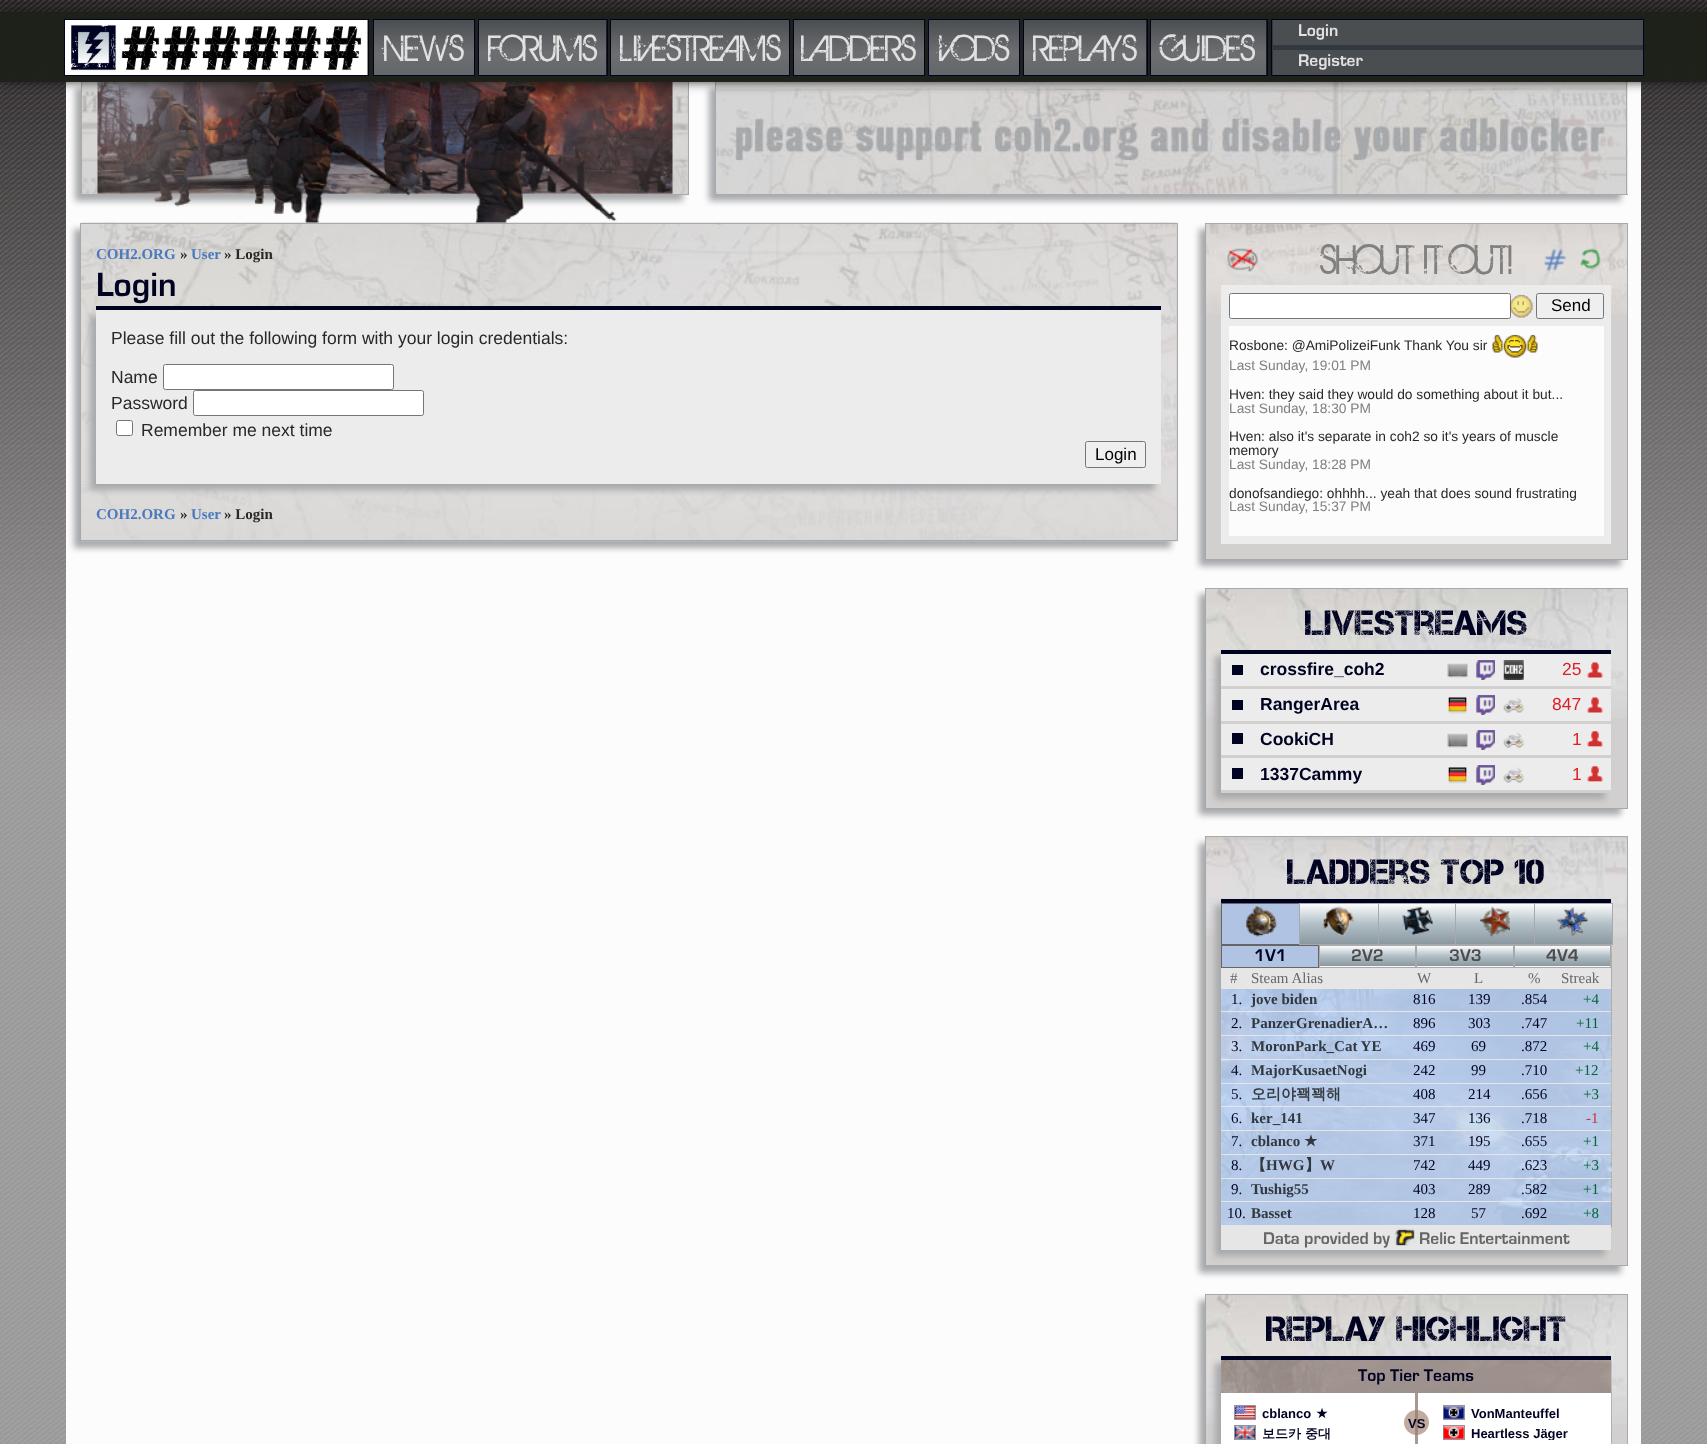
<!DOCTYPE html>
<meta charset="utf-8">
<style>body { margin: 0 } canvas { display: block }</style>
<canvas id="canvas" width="1707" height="1444"></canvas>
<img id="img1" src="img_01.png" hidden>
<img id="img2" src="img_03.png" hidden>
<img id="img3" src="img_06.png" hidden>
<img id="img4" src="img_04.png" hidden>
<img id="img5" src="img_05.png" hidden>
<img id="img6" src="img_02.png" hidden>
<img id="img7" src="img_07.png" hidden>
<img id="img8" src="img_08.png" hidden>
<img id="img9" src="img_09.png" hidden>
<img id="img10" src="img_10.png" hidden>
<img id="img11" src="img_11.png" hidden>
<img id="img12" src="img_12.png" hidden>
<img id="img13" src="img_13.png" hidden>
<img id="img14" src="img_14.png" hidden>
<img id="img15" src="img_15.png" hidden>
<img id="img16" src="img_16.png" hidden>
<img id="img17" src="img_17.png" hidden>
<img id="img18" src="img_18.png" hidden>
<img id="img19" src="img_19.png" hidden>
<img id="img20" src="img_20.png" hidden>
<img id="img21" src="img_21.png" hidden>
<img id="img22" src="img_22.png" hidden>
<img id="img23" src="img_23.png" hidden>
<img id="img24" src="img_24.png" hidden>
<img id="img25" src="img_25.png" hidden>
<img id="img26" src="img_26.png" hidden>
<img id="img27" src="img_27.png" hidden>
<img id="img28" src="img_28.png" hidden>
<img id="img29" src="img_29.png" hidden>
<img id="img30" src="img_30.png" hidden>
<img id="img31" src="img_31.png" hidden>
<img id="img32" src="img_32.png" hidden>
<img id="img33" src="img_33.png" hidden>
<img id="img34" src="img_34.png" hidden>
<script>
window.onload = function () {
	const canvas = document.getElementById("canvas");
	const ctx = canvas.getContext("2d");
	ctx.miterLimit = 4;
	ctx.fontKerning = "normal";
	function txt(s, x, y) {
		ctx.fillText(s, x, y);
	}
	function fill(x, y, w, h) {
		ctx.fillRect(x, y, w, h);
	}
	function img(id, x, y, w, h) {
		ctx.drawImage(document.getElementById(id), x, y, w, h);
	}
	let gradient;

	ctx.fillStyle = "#FFFFFF";
	fill(0, 0, 1707, 1444);
	img("img1", 0, 0, 1707, 1444);
	ctx.fillStyle = "#FCFCFC";
	fill(66, 81, 1575, 1363);
	ctx.fillStyle = "#A7A9AC";
	ctx.filter = "blur(3px)";
	ctx.beginPath();
	ctx.rect(75, 88, 608, 113);
	ctx.fill();
	ctx.filter = "none";
	img("img2", 82, 81, 606, 113);
	fill(688, 81, 1, 114);
	fill(81, 81, 1, 13);
	ctx.filter = "blur(3px)";
	ctx.beginPath();
	ctx.rect(74, 229, 1097, 319);
	ctx.fill();
	ctx.filter = "none";
	ctx.fillStyle = "#D2D0CF";
	fill(81, 224, 1096, 316);
	img("img3", 81, 222, 1096, 320);
	img("img4", 97, 81, 576, 142);
	ctx.fillStyle = "#A7A9AC";
	ctx.filter = "blur(3px)";
	ctx.beginPath();
	ctx.rect(709, 88, 912, 113);
	ctx.fill();
	ctx.filter = "none";
	img("img5", 716, 81, 912, 113);
	fill(1626, 81, 1, 114);
	fill(715, 81, 1, 13);
	ctx.save();
	ctx.beginPath();
	ctx.moveTo(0, 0);
	ctx.lineTo(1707, 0);
	ctx.lineTo(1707, 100);
	ctx.lineTo(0, 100);
	ctx.closePath();
	ctx.moveTo(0, 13);
	ctx.lineTo(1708, 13);
	ctx.lineTo(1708, 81);
	ctx.lineTo(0, 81);
	ctx.closePath();
	ctx.clip("evenodd");
	ctx.fillStyle = "#131313";
	ctx.filter = "blur(6px)";
	ctx.beginPath();
	ctx.rect(0, 13, 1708, 68);
	ctx.fill();
	ctx.filter = "none";
	ctx.restore();
	ctx.fillStyle = "rgba(30, 32, 25, 0.95)";
	fill(0, 12, 1707, 70);
	ctx.strokeStyle = "#000222";
	ctx.strokeRect(64.5, 19.5, 304, 56);
	img("img6", 65, 20, 303, 55);
	ctx.strokeRect(373.5, 19.5, 101, 56);
	gradient = ctx.createLinearGradient(374, 20, 374, 75);
	gradient.addColorStop(0, "#4A4E50");
	gradient.addColorStop(0.6, "#6D6E71");
	gradient.addColorStop(1, "#63686A");
	ctx.fillStyle = gradient;
	fill(374, 20, 100, 55);
	ctx.strokeRect(478.5, 19.5, 129, 56);
	gradient = ctx.createLinearGradient(479, 20, 479, 75);
	gradient.addColorStop(0, "#4A4E50");
	gradient.addColorStop(0.6, "#6D6E71");
	gradient.addColorStop(1, "#63686A");
	ctx.fillStyle = gradient;
	fill(479, 20, 127, 55);
	ctx.strokeRect(610.5, 19.5, 179, 56);
	gradient = ctx.createLinearGradient(611, 20, 611, 75);
	gradient.addColorStop(0, "#4A4E50");
	gradient.addColorStop(0.6, "#6D6E71");
	gradient.addColorStop(1, "#63686A");
	ctx.fillStyle = gradient;
	fill(611, 20, 178, 55);
	ctx.strokeRect(793.5, 19.5, 131, 56);
	gradient = ctx.createLinearGradient(794, 20, 794, 75);
	gradient.addColorStop(0, "#4A4E50");
	gradient.addColorStop(0.6, "#6D6E71");
	gradient.addColorStop(1, "#63686A");
	ctx.fillStyle = gradient;
	fill(794, 20, 130, 55);
	ctx.strokeRect(928.5, 19.5, 91, 56);
	gradient = ctx.createLinearGradient(929, 20, 929, 75);
	gradient.addColorStop(0, "#4A4E50");
	gradient.addColorStop(0.6, "#6D6E71");
	gradient.addColorStop(1, "#63686A");
	ctx.fillStyle = gradient;
	fill(929, 20, 90, 55);
	ctx.strokeRect(1023.5, 19.5, 124, 56);
	gradient = ctx.createLinearGradient(1024, 20, 1024, 75);
	gradient.addColorStop(0, "#4A4E50");
	gradient.addColorStop(0.6, "#6D6E71");
	gradient.addColorStop(1, "#63686A");
	ctx.fillStyle = gradient;
	fill(1024, 20, 122, 55);
	ctx.strokeRect(1150.5, 19.5, 117, 56);
	gradient = ctx.createLinearGradient(1151, 20, 1151, 75);
	gradient.addColorStop(0, "#4A4E50");
	gradient.addColorStop(0.6, "#6D6E71");
	gradient.addColorStop(1, "#63686A");
	ctx.fillStyle = gradient;
	fill(1151, 20, 115, 55);
	ctx.fillStyle = "#323840";
	ctx.beginPath();
	ctx.rect(1271.5, 19.5, 372, 56);
	ctx.fill();
	ctx.stroke();
	ctx.fillStyle = "#4A4E50";
	fill(1273, 20, 370, 25);
	fill(1273, 50, 370, 25);
	ctx.fillStyle = "#A7A9AC";
	fill(677, 194, 12, 1);
	fill(1615, 194, 13, 1);
	ctx.strokeStyle = "#A7A9AC";
	ctx.strokeRect(80.5, 223.5, 1097, 317);
	ctx.filter = "blur(3px)";
	ctx.beginPath();
	ctx.rect(90, 316, 1065, 174);
	ctx.fill();
	ctx.filter = "none";
	ctx.fillStyle = "#000222";
	fill(96, 306, 1065, 4);
	ctx.fillStyle = "#EDECED";
	fill(96, 310, 1065, 174);
	ctx.fillStyle = "#FFFFFF";
	ctx.beginPath();
	ctx.roundRect(163.5, 364.5, 230, 25, 2);
	ctx.fill();
	ctx.strokeStyle = "#767676";
	ctx.stroke();
	ctx.beginPath();
	ctx.roundRect(193.5, 390.5, 230, 25, 2);
	ctx.fill();
	ctx.stroke();
	ctx.beginPath();
	ctx.roundRect(116.5, 420.5, 16, 15, 2);
	ctx.fill();
	ctx.stroke();
	ctx.fillStyle = "#EFEFEF";
	ctx.beginPath();
	ctx.roundRect(1085.5, 441.5, 60, 26, 2);
	ctx.fill();
	ctx.stroke();
	ctx.fillStyle = "#A7A9AC";
	ctx.filter = "blur(3px)";
	ctx.beginPath();
	ctx.rect(1199, 229, 422, 337);
	ctx.fill();
	ctx.filter = "none";
	ctx.fillStyle = "#D2D0CF";
	fill(1206, 224, 421, 335);
	img("img7", 1206, 224, 421, 90);
	ctx.strokeStyle = "#A7A9AC";
	ctx.strokeRect(1205.5, 223.5, 422, 336);
	ctx.fillStyle = "#EDECED";
	fill(1221, 285, 390, 259);
	img("img8", 1227, 248, 31, 24);
	img("img9", 1543, 248, 24, 24);
	img("img10", 1580, 248, 21, 21);
	ctx.fillStyle = "#FFFFFF";
	ctx.beginPath();
	ctx.roundRect(1229.5, 293.5, 281, 25, 2);
	ctx.fill();
	ctx.strokeStyle = "#767676";
	ctx.stroke();
	img("img11", 1509, 294, 24, 24);
	ctx.fillStyle = "#EFEFEF";
	ctx.beginPath();
	ctx.roundRect(1536.5, 293.5, 67, 25, 2);
	ctx.fill();
	ctx.stroke();
	ctx.fillStyle = "#FCFCFC";
	fill(1229, 326, 375, 210);
	img("img12", 1492, 334, 46, 24);
	ctx.fillStyle = "#A7A9AC";
	ctx.filter = "blur(3px)";
	ctx.beginPath();
	ctx.rect(1199, 594, 422, 221);
	ctx.fill();
	ctx.filter = "none";
	ctx.fillStyle = "#D2D0CF";
	fill(1206, 589, 421, 219);
	img("img13", 1206, 589, 421, 129);
	ctx.strokeStyle = "#A7A9AC";
	ctx.strokeRect(1205.5, 588.5, 422, 220);
	ctx.fillStyle = "#A7A9AC";
	ctx.filter = "blur(3px)";
	ctx.beginPath();
	ctx.rect(1215, 656, 390, 143);
	ctx.fill();
	ctx.filter = "none";
	ctx.fillStyle = "#EDECED";
	fill(1221, 654, 390, 136);
	ctx.fillStyle = "#000222";
	fill(1221, 650, 390, 4);
	img("img14", 1447, 663, 21, 15);
	img("img15", 1476, 660, 19, 20);
	img("img16", 1503, 660, 21, 20);
	img("img17", 1587, 662, 16, 16);
	fill(1232, 665, 11, 10);
	ctx.fillStyle = "#D2CFCF";
	fill(1221, 686, 390, 3);
	img("img18", 1448, 697, 19, 17);
	img("img15", 1476, 695, 19, 20);
	img("img19", 1503, 697, 21, 16);
	img("img17", 1587, 697, 16, 16);
	ctx.fillStyle = "#000222";
	fill(1232, 700, 11, 10);
	ctx.fillStyle = "#D2CFCF";
	fill(1221, 721, 390, 3);
	img("img15", 1476, 730, 19, 20);
	img("img19", 1503, 732, 21, 16);
	img("img20", 1587, 731, 16, 16);
	ctx.fillStyle = "#000222";
	fill(1232, 733, 11, 11);
	ctx.fillStyle = "#D2CFCF";
	fill(1221, 755, 390, 3);
	img("img14", 1447, 733, 21, 15);
	img("img18", 1448, 767, 19, 17);
	img("img15", 1476, 765, 19, 20);
	img("img19", 1503, 767, 21, 16);
	img("img20", 1587, 766, 16, 16);
	ctx.fillStyle = "#000222";
	fill(1232, 768, 11, 11);
	ctx.fillStyle = "#D2CFCF";
	fill(1221, 790, 390, 3);
	ctx.fillStyle = "#A7A9AC";
	ctx.filter = "blur(3px)";
	ctx.beginPath();
	ctx.rect(1199, 843, 422, 430);
	ctx.fill();
	ctx.filter = "none";
	ctx.fillStyle = "#D2D0CF";
	fill(1206, 837, 421, 428);
	img("img21", 1206, 837, 421, 100);
	ctx.strokeRect(1205.5, 836.5, 422, 429);
	ctx.fillStyle = "#A7A9AC";
	ctx.filter = "blur(3px)";
	ctx.beginPath();
	ctx.rect(1215, 905, 390, 351);
	ctx.fill();
	ctx.filter = "none";
	ctx.fillStyle = "#000222";
	fill(1221, 899, 390, 4);
	img("img22", 1221, 945, 391, 283);
	ctx.fillStyle = "rgba(193, 217, 254, 0.85)";
	fill(1221, 989, 390, 236);
	ctx.fillStyle = "#B0C3E3";
	fill(1222, 904, 77, 40);
	ctx.strokeStyle = "#666666";
	ctx.strokeRect(1221.5, 903.5, 79, 41);
	img("img23", 1246, 906, 31, 31);
	gradient = ctx.createLinearGradient(1300, 904, 1300, 944);
	gradient.addColorStop(0, "#FCFCFC");
	gradient.addColorStop(0.5, "#B1BFC7");
	gradient.addColorStop(1, "#8B98A0");
	ctx.fillStyle = gradient;
	fill(1300, 904, 78, 40);
	ctx.strokeStyle = "#A7A9AC";
	ctx.strokeRect(1299.5, 903.5, 79, 41);
	img("img24", 1323, 906, 31, 31);
	gradient = ctx.createLinearGradient(1379, 904, 1379, 944);
	gradient.addColorStop(0, "#FCFCFC");
	gradient.addColorStop(0.5, "#B1BFC7");
	gradient.addColorStop(1, "#8B98A0");
	ctx.fillStyle = gradient;
	fill(1379, 904, 76, 40);
	ctx.strokeRect(1378.5, 903.5, 79, 41);
	img("img25", 1402, 906, 31, 30);
	gradient = ctx.createLinearGradient(1456, 904, 1456, 944);
	gradient.addColorStop(0, "#FCFCFC");
	gradient.addColorStop(0.5, "#B1BFC7");
	gradient.addColorStop(1, "#8B98A0");
	ctx.fillStyle = gradient;
	fill(1456, 904, 78, 40);
	ctx.strokeRect(1455.5, 903.5, 79, 41);
	img("img26", 1480, 906, 30, 31);
	gradient = ctx.createLinearGradient(1535, 904, 1535, 944);
	gradient.addColorStop(0, "#FCFCFC");
	gradient.addColorStop(0.5, "#B1BFC7");
	gradient.addColorStop(1, "#8B98A0");
	ctx.fillStyle = gradient;
	fill(1535, 904, 77, 40);
	ctx.strokeRect(1534.5, 903.5, 78, 41);
	img("img27", 1557, 907, 31, 29);
	ctx.fillStyle = "#B0C3E3";
	ctx.beginPath();
	ctx.rect(1221.5, 945.5, 97, 22);
	ctx.fill();
	ctx.strokeStyle = "#666666";
	ctx.stroke();
	gradient = ctx.createLinearGradient(1320, 946, 1320, 966);
	gradient.addColorStop(0, "#FCFCFC");
	gradient.addColorStop(0.5, "#B1BFC7");
	gradient.addColorStop(1, "#8B98A0");
	ctx.fillStyle = gradient;
	fill(1320, 946, 95, 20);
	gradient = ctx.createLinearGradient(1320, 966, 1320, 986);
	gradient.addColorStop(0, "#FCFCFC");
	gradient.addColorStop(0.5, "#B1BFC7");
	gradient.addColorStop(1, "#8B98A0");
	ctx.fillStyle = gradient;
	fill(1319, 966, 97, 1);
	ctx.strokeStyle = "#A7A9AC";
	ctx.strokeRect(1319.5, 945.5, 96, 22);
	gradient = ctx.createLinearGradient(1418, 946, 1418, 966);
	gradient.addColorStop(0, "#FCFCFC");
	gradient.addColorStop(0.5, "#B1BFC7");
	gradient.addColorStop(1, "#8B98A0");
	ctx.fillStyle = gradient;
	fill(1417, 946, 96, 20);
	gradient = ctx.createLinearGradient(1418, 966, 1418, 986);
	gradient.addColorStop(0, "#FCFCFC");
	gradient.addColorStop(0.5, "#B1BFC7");
	gradient.addColorStop(1, "#8B98A0");
	ctx.fillStyle = gradient;
	fill(1416, 966, 98, 1);
	ctx.strokeRect(1416.5, 945.5, 97, 22);
	gradient = ctx.createLinearGradient(1515, 946, 1515, 966);
	gradient.addColorStop(0, "#FCFCFC");
	gradient.addColorStop(0.5, "#B1BFC7");
	gradient.addColorStop(1, "#8B98A0");
	ctx.fillStyle = gradient;
	fill(1515, 946, 95, 20);
	gradient = ctx.createLinearGradient(1515, 966, 1515, 986);
	gradient.addColorStop(0, "#FCFCFC");
	gradient.addColorStop(0.5, "#B1BFC7");
	gradient.addColorStop(1, "#8B98A0");
	ctx.fillStyle = gradient;
	fill(1514, 966, 97, 1);
	ctx.strokeRect(1514.5, 945.5, 96, 22);
	ctx.fillStyle = "#E6E6E6";
	fill(1221, 968, 390, 21);
	fill(1221, 1011, 390, 1);
	fill(1221, 1035, 390, 1);
	fill(1221, 1059, 390, 1);
	fill(1221, 1083, 390, 1);
	fill(1221, 1106, 390, 1);
	fill(1221, 1130, 390, 1);
	fill(1221, 1154, 390, 1);
	fill(1221, 1178, 390, 1);
	fill(1221, 1201, 390, 1);
	fill(1221, 1225, 390, 25);
	img("img28", 1395, 1228, 20, 18);
	ctx.fillStyle = "#A7A9AC";
	ctx.filter = "blur(3px)";
	ctx.beginPath();
	ctx.rect(1199, 1300, 422, 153);
	ctx.fill();
	ctx.filter = "none";
	ctx.fillStyle = "#D2D0CF";
	fill(1206, 1295, 421, 149);
	img("img29", 1206, 1295, 421, 129);
	ctx.strokeRect(1205.5, 1294.5, 422, 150);
	ctx.fillStyle = "#A7A9AC";
	ctx.filter = "blur(3px)";
	ctx.beginPath();
	ctx.rect(1215, 1363, 390, 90);
	ctx.fill();
	ctx.filter = "none";
	ctx.fillStyle = "#000222";
	fill(1221, 1356, 390, 4);
	img("img30", 1221, 1360, 391, 84);
	ctx.fillStyle = "rgba(172, 158, 152, 0.85)";
	fill(1221, 1360, 390, 33);
	ctx.fillStyle = "#FFFFFF";
	fill(1221, 1393, 390, 51);
	ctx.fillStyle = "#A69991";
	fill(1415, 1393, 3, 51);
	ctx.strokeStyle = "#8B98A1";
	ctx.strokeRect(1234.5, 1405.5, 21, 14);
	img("img31", 1235, 1406, 20, 13);
	ctx.strokeRect(1234.5, 1425.5, 21, 14);
	img("img32", 1235, 1426, 20, 13);
	ctx.fillStyle = "rgba(160, 124, 109, 0.65)";
	ctx.beginPath();
	ctx.arc(1416.5, 1422.5, 12.5, 0, Math.PI * 2);
	ctx.fill();
	ctx.strokeRect(1443.5, 1405.5, 21, 14);
	img("img33", 1443, 1406, 21, 13);
	ctx.strokeRect(1443.5, 1425.5, 21, 14);
	img("img34", 1443, 1426, 21, 13);
	ctx.font = "40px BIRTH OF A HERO";
	ctx.fillStyle = "#E1E1E1";
	txt("NEWS", 384, 61);
	txt("FORUMS", 488, 61);
	txt("LIVESTREAMS", 620, 61);
	txt("LADDERS", 801, 61);
	txt("VODS", 939, 61);
	txt("REPLAYS", 1033, 61);
	txt("GUIDES", 1162, 61);
	ctx.font = "bold 17.5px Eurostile";
	txt("Login", 1298, 36);
	txt("Register", 1298, 66);
	ctx.font = "bold 15px Liberation Serif";
	ctx.fillStyle = "#4B79BE";
	txt("COH2.ORG", 96, 259);
	ctx.fillStyle = "#282828";
	txt("»", 180, 259);
	ctx.fillStyle = "#4B79BE";
	txt("User", 191, 259);
	ctx.fillStyle = "#282828";
	txt("» Login", 224, 259);
	ctx.font = "bold 35px Eurostile";
	ctx.fillStyle = "#000222";
	txt("Login", 96, 296);
	ctx.font = "17.5px Liberation Sans";
	ctx.fillStyle = "#282828";
	txt("Please fill out the following form with your login credentials:", 111, 344);
	txt("Name", 111, 383);
	txt("Password", 111, 409);
	txt("Remember me next time", 141, 436);
	ctx.font = "17px Liberation Sans";
	ctx.fillStyle = "#000000";
	txt("Login", 1095, 460);
	ctx.font = "bold 15px Liberation Serif";
	ctx.fillStyle = "#4B79BE";
	txt("COH2.ORG", 96, 519);
	ctx.fillStyle = "#282828";
	txt("»", 180, 519);
	ctx.fillStyle = "#4B79BE";
	txt("User", 191, 519);
	ctx.fillStyle = "#282828";
	txt("» Login", 224, 519);
	ctx.font = "45px BIRTH OF A HERO";
	ctx.fillStyle = "#808080";
	txt("SHOUT IT OUT!", 1320, 274);
	ctx.font = "17px Liberation Sans";
	ctx.fillStyle = "#000000";
	txt("Send", 1551, 311);
	ctx.font = "13.75px Liberation Sans";
	ctx.fillStyle = "#282828";
	txt("Rosbone: @AmiPolizeiFunk Thank You sir", 1229, 350);
	ctx.fillStyle = "#808080";
	txt("Last Sunday, 19:01 PM", 1229, 370);
	ctx.fillStyle = "#282828";
	txt("Hven: they said they would do something about it but...", 1229, 399);
	ctx.fillStyle = "#808080";
	txt("Last Sunday, 18:30 PM", 1229, 413);
	ctx.fillStyle = "#282828";
	txt("Hven: also it's separate in coh2 so it's years of muscle", 1229, 441);
	txt("memory", 1229, 455);
	ctx.fillStyle = "#808080";
	txt("Last Sunday, 18:28 PM", 1229, 469);
	ctx.fillStyle = "#282828";
	txt("donofsandiego: ohhhh... yeah that does sound frustrating", 1229, 498);
	ctx.fillStyle = "#808080";
	txt("Last Sunday, 15:37 PM", 1229, 511);
	ctx.font = "35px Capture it";
	ctx.fillStyle = "#000222";
	txt("Livestreams", 1305, 635);
	ctx.font = "bold 17.5px Liberation Sans";
	txt("crossfire_coh2", 1260, 675);
	ctx.font = "17.5px Liberation Sans";
	ctx.fillStyle = "#DB1F26";
	txt("25", 1562, 675);
	ctx.font = "bold 17.5px Liberation Sans";
	ctx.fillStyle = "#000222";
	txt("RangerArea", 1260, 710);
	ctx.font = "17.5px Liberation Sans";
	ctx.fillStyle = "#DB1F26";
	txt("847", 1552, 710);
	ctx.font = "bold 17.5px Liberation Sans";
	ctx.fillStyle = "#000222";
	txt("CookiCH", 1260, 745);
	ctx.font = "17.5px Liberation Sans";
	ctx.fillStyle = "#DB1F26";
	txt("1", 1572, 745);
	ctx.font = "bold 17.5px Liberation Sans";
	ctx.fillStyle = "#000222";
	txt("1337Cammy", 1260, 780);
	ctx.font = "17.5px Liberation Sans";
	ctx.fillStyle = "#DB1F26";
	txt("1", 1572, 780);
	ctx.font = "35px Capture it";
	ctx.fillStyle = "#000222";
	txt("Ladders Top 10", 1287, 884);
	ctx.font = "bold 17.5px Eurostile";
	txt("1V1", 1254, 961);
	ctx.fillStyle = "#4D4D4D";
	txt("2V2", 1351, 961);
	txt("3V3", 1449, 961);
	txt("4V4", 1546, 961);
	ctx.font = "15px Liberation Serif";
	ctx.fillStyle = "#666666";
	txt("#", 1230, 983);
	txt("Steam Alias", 1251, 983);
	txt("W", 1417, 983);
	txt("L", 1474, 983);
	txt("%", 1528, 983);
	txt("Streak", 1561, 983);
	ctx.fillStyle = "#000222";
	txt("1.", 1231, 1004);
	ctx.font = "bold 15px Liberation Serif";
	ctx.fillStyle = "#323840";
	txt("jove biden", 1251, 1004);
	ctx.font = "15px Liberation Serif";
	ctx.fillStyle = "#000222";
	txt("816", 1413, 1004);
	txt("139", 1468, 1004);
	txt(".854", 1521, 1004);
	ctx.fillStyle = "#006837";
	txt("+4", 1583, 1004);
	ctx.fillStyle = "#000222";
	txt("2.", 1231, 1028);
	ctx.font = "bold 15px Liberation Serif";
	ctx.fillStyle = "#323840";
	txt("PanzerGrenadierA…", 1251, 1028);
	ctx.font = "15px Liberation Serif";
	ctx.fillStyle = "#000222";
	txt("896", 1413, 1028);
	txt("303", 1468, 1028);
	txt(".747", 1521, 1028);
	ctx.fillStyle = "#006837";
	txt("+11", 1576, 1028);
	ctx.fillStyle = "#000222";
	txt("3.", 1231, 1051);
	ctx.font = "bold 15px Liberation Serif";
	ctx.fillStyle = "#323840";
	txt("MoronPark_Cat YE", 1251, 1051);
	ctx.font = "15px Liberation Serif";
	ctx.fillStyle = "#000222";
	txt("469", 1413, 1051);
	txt("69", 1471, 1051);
	txt(".872", 1521, 1051);
	ctx.fillStyle = "#006837";
	txt("+4", 1583, 1051);
	ctx.fillStyle = "#000222";
	txt("4.", 1231, 1075);
	ctx.font = "bold 15px Liberation Serif";
	ctx.fillStyle = "#323840";
	txt("MajorKusaetNogi", 1251, 1075);
	ctx.font = "15px Liberation Serif";
	ctx.fillStyle = "#000222";
	txt("242", 1413, 1075);
	txt("99", 1471, 1075);
	txt(".710", 1521, 1075);
	ctx.fillStyle = "#006837";
	txt("+12", 1575, 1075);
	ctx.fillStyle = "#000222";
	txt("5.", 1231, 1099);
	ctx.font = "bold 15px WenQuanYi Zen Hei";
	ctx.fillStyle = "#323840";
	txt("오리야꽥꽥해", 1251, 1099);
	ctx.font = "15px Liberation Serif";
	ctx.fillStyle = "#000222";
	txt("408", 1413, 1099);
	txt("214", 1468, 1099);
	txt(".656", 1521, 1099);
	ctx.fillStyle = "#006837";
	txt("+3", 1583, 1099);
	ctx.fillStyle = "#000222";
	txt("6.", 1231, 1123);
	ctx.font = "bold 15px Liberation Serif";
	ctx.fillStyle = "#323840";
	txt("ker_141", 1251, 1123);
	ctx.font = "15px Liberation Serif";
	ctx.fillStyle = "#000222";
	txt("347", 1413, 1123);
	txt("136", 1468, 1123);
	txt(".718", 1521, 1123);
	ctx.fillStyle = "#CC3333";
	txt("-1", 1586, 1123);
	ctx.fillStyle = "#000222";
	txt("7.", 1231, 1146);
	ctx.font = "bold 15px Liberation Serif";
	ctx.fillStyle = "#323840";
	txt("cblanco", 1251, 1146);
	ctx.font = "bold 15px DejaVu Sans";
	txt("★", 1304, 1146);
	ctx.font = "15px Liberation Serif";
	ctx.fillStyle = "#000222";
	txt("371", 1413, 1146);
	txt("195", 1468, 1146);
	txt(".655", 1521, 1146);
	ctx.fillStyle = "#006837";
	txt("+1", 1583, 1146);
	ctx.fillStyle = "#000222";
	txt("8.", 1231, 1170);
	ctx.font = "bold 15px WenQuanYi Zen Hei";
	ctx.fillStyle = "#323840";
	txt("【", 1251, 1170);
	ctx.font = "bold 15px Liberation Serif";
	txt("HWG", 1266, 1170);
	ctx.font = "bold 15px WenQuanYi Zen Hei";
	txt("】", 1305, 1170);
	ctx.font = "bold 15px Liberation Serif";
	txt("W", 1320, 1170);
	ctx.font = "15px Liberation Serif";
	ctx.fillStyle = "#000222";
	txt("742", 1413, 1170);
	txt("449", 1468, 1170);
	txt(".623", 1521, 1170);
	ctx.fillStyle = "#006837";
	txt("+3", 1583, 1170);
	ctx.fillStyle = "#000222";
	txt("9.", 1231, 1194);
	ctx.font = "bold 15px Liberation Serif";
	ctx.fillStyle = "#323840";
	txt("Tushig55", 1251, 1194);
	ctx.font = "15px Liberation Serif";
	ctx.fillStyle = "#000222";
	txt("403", 1413, 1194);
	txt("289", 1468, 1194);
	txt(".582", 1521, 1194);
	ctx.fillStyle = "#006837";
	txt("+1", 1583, 1194);
	ctx.fillStyle = "#000222";
	txt("10.", 1227, 1218);
	ctx.font = "bold 15px Liberation Serif";
	ctx.fillStyle = "#323840";
	txt("Basset", 1251, 1218);
	ctx.font = "15px Liberation Serif";
	ctx.fillStyle = "#000222";
	txt("128", 1413, 1218);
	txt("57", 1471, 1218);
	txt(".692", 1521, 1218);
	ctx.fillStyle = "#006837";
	txt("+8", 1583, 1218);
	ctx.font = "bold 17.5px Eurostile";
	ctx.fillStyle = "#666666";
	txt("Data provided by", 1263, 1244);
	txt("Relic Entertainment", 1419, 1244);
	ctx.font = "35px Capture it";
	ctx.fillStyle = "#000222";
	txt("Replay highlight", 1266, 1341);
	ctx.font = "bold 17.5px Eurostile";
	txt("Top Tier Teams", 1358, 1381);
	ctx.font = "bold 13px Liberation Sans";
	txt("cblanco", 1262, 1418);
	ctx.font = "bold 13px DejaVu Sans";
	txt("★", 1316, 1418);
	ctx.font = "bold 13px WenQuanYi Zen Hei";
	txt("보드카 중대", 1262, 1438);
	ctx.font = "bold 13px Liberation Sans";
	txt("VS", 1408, 1428);
	txt("VonManteuffel", 1471, 1418);
	ctx.save();
	ctx.beginPath();
	ctx.rect(1443, 1425, 156, 15);
	ctx.clip();
	txt("Heartless Jäger", 1471, 1438);
	ctx.restore();
};
</script>
